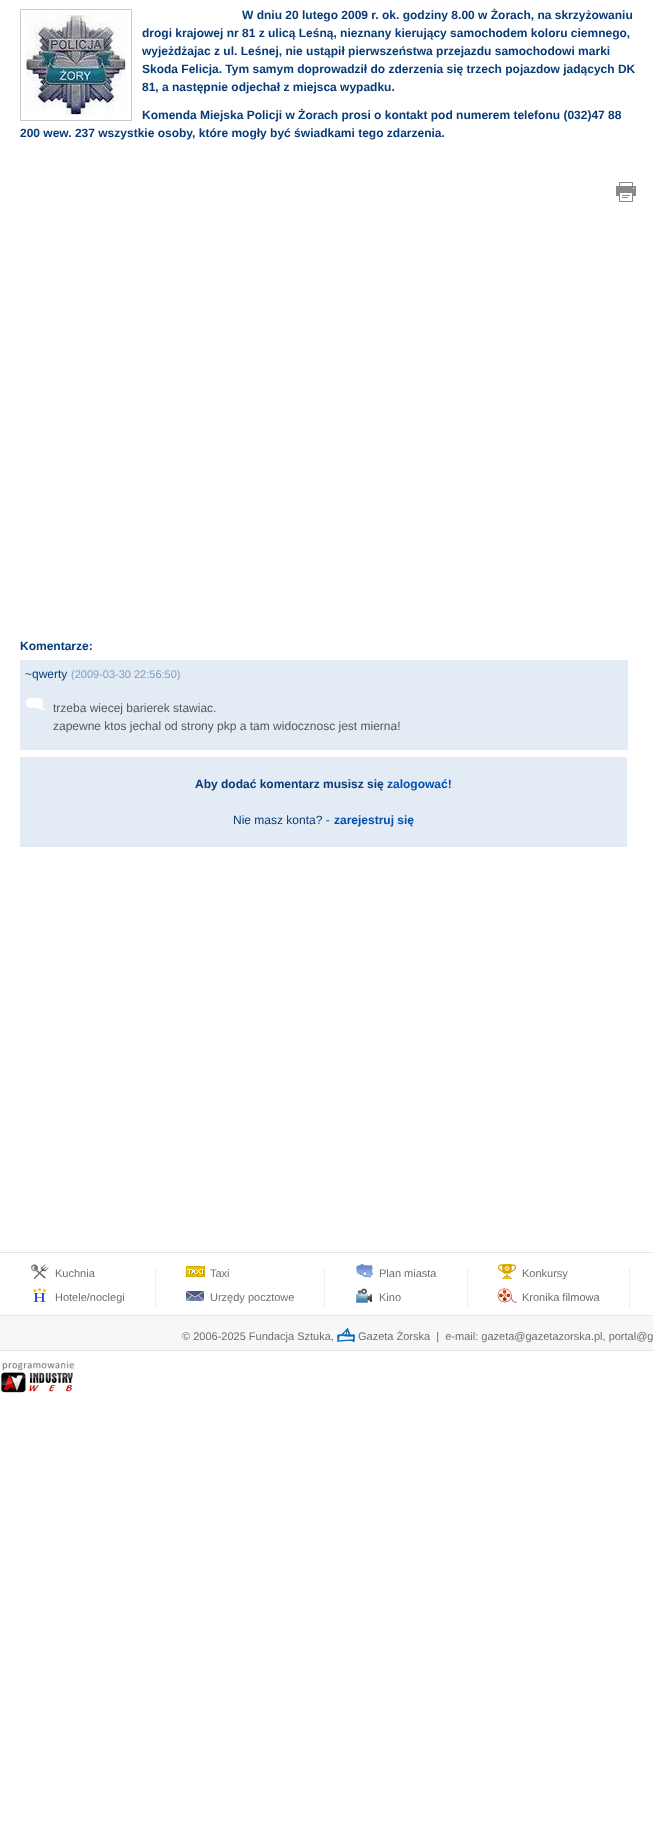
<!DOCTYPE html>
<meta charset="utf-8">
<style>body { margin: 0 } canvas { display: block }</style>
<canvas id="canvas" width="653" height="1845"></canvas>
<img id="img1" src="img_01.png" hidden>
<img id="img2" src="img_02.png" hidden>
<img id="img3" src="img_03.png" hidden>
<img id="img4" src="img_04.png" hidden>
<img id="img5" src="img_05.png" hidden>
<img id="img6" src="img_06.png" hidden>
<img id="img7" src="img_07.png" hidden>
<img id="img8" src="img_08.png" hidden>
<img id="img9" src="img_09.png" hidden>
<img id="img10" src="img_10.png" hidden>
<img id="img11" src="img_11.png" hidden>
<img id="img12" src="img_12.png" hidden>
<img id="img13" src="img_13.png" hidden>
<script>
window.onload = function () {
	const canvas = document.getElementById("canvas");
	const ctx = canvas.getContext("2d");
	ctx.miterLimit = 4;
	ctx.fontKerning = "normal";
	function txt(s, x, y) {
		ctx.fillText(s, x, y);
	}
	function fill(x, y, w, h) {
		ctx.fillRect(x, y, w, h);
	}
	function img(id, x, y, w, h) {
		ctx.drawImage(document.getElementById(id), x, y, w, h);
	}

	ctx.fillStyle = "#FFFFFF";
	fill(0, 0, 653, 1845);
	ctx.strokeStyle = "#C9C9C9";
	ctx.strokeRect(20.5, 9.5, 111, 111);
	img("img1", 26, 15, 100, 100);
	img("img2", 616, 182, 20, 20);
	ctx.fillStyle = "#E3EBF4";
	fill(20, 660, 608, 90);
	img("img3", 25, 698, 21, 12);
	fill(20, 757, 607, 90);
	ctx.fillStyle = "#E4E4E4";
	fill(0, 1252, 653, 1);
	img("img4", 30, 1264, 19, 15);
	img("img5", 33, 1287, 14, 15);
	ctx.fillStyle = "#EFEFEF";
	fill(155, 1268, 1, 40);
	img("img6", 185, 1266, 20, 11);
	img("img7", 186, 1291, 18, 10);
	fill(324, 1268, 1, 40);
	img("img8", 356, 1264, 17, 14);
	img("img9", 356, 1288, 16, 15);
	fill(467, 1268, 1, 40);
	img("img10", 498, 1264, 18, 15);
	img("img11", 497, 1288, 20, 15);
	fill(629, 1268, 1, 40);
	ctx.fillStyle = "#F7F7F7";
	fill(0, 1316, 653, 34);
	ctx.fillStyle = "#E4E4E4";
	fill(0, 1315, 653, 1);
	fill(0, 1350, 653, 1);
	img("img12", 337, 1328, 18, 14);
	img("img13", 0, 1360, 75, 33);
	ctx.font = "bold 12px Liberation Sans";
	ctx.fillStyle = "#083C79";
	txt("W dniu 20 lutego 2009 r. ok. godziny 8.00 w Żorach, na skrzyżowaniu", 242, 19);
	txt("drogi krajowej nr 81 z ulicą Leśną, nieznany kierujący samochodem koloru ciemnego,", 142, 37);
	txt("wyjeżdżajac z ul. Leśnej, nie ustąpił pierwszeństwa przejazdu samochodowi marki", 142, 55);
	txt("Skoda Felicja. Tym samym doprowadził do zderzenia się trzech pojazdow jadących DK", 142, 73);
	txt("81, a następnie odjechał z miejsca wypadku.", 142, 91);
	txt("Komenda Miejska Policji w Żorach prosi o kontakt pod numerem telefonu (032)47 88", 142, 119);
	txt("200 wew. 237 wszystkie osoby, które mogły być świadkami tego zdarzenia.", 20, 137);
	txt("Komentarze:", 20, 650);
	ctx.font = "12px Liberation Sans";
	txt("~qwerty", 25, 678);
	ctx.font = "11px Liberation Sans";
	ctx.fillStyle = "#819DC1";
	txt("(2009-03-30 22:56:50)", 71, 678);
	ctx.font = "12px Liberation Sans";
	ctx.fillStyle = "#575757";
	txt("trzeba wiecej barierek stawiac.", 53, 712);
	txt("zapewne ktos jechal od strony pkp a tam widocznosc jest mierna!", 53, 730);
	ctx.font = "bold 12px Liberation Sans";
	ctx.fillStyle = "#083C79";
	txt("Aby dodać komentarz musisz się", 195, 788);
	ctx.fillStyle = "#0052AF";
	txt("zalogować!", 387, 788);
	ctx.font = "12px Liberation Sans";
	ctx.fillStyle = "#083C79";
	txt("Nie masz konta? -", 233, 824);
	ctx.font = "bold 12px Liberation Sans";
	ctx.fillStyle = "#0052AF";
	txt("zarejestruj się", 334, 824);
	ctx.font = "11px Liberation Sans";
	ctx.fillStyle = "#6E6E6E";
	txt("Kuchnia", 55, 1277);
	txt("Hotele/noclegi", 55, 1301);
	txt("Taxi", 210, 1277);
	txt("Urzędy pocztowe", 210, 1301);
	txt("Plan miasta", 379, 1277);
	txt("Kino", 379, 1301);
	txt("Konkursy", 522, 1277);
	txt("Kronika filmowa", 522, 1301);
	txt("© 2006-2025 Fundacja Sztuka,", 182, 1340);
	txt("Gazeta Żorska  |  e-mail: gazeta@gazetazorska.pl, portal@g", 358, 1340);
};
</script>
